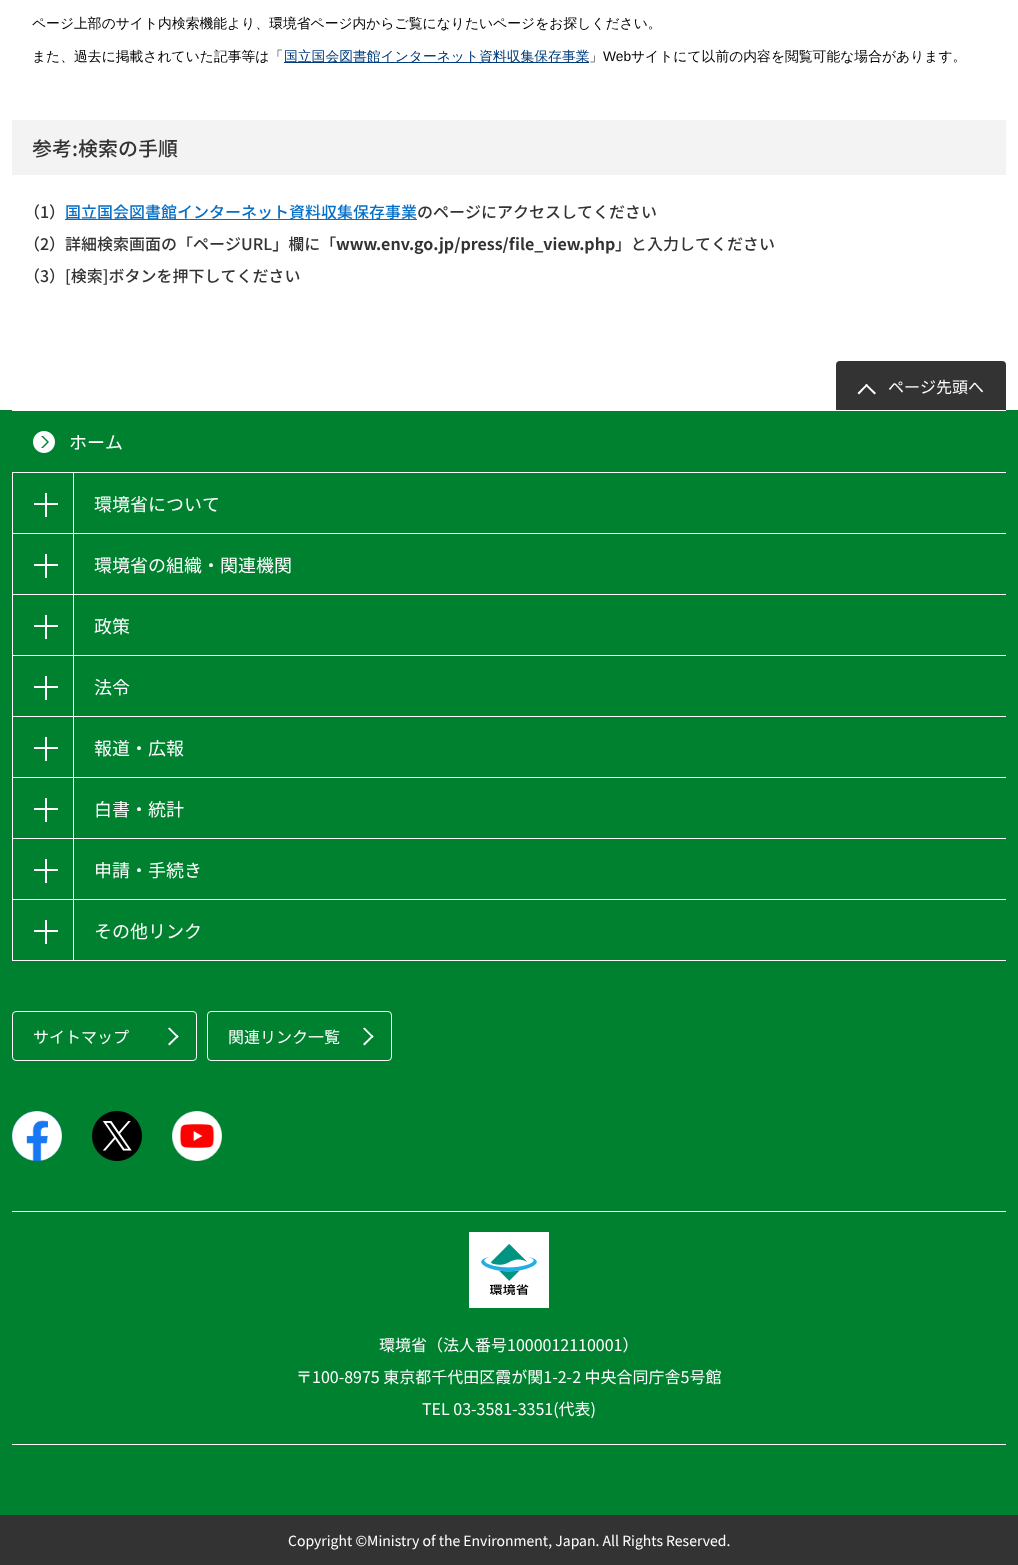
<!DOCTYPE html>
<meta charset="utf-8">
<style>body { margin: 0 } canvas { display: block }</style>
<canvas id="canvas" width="1018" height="1565"></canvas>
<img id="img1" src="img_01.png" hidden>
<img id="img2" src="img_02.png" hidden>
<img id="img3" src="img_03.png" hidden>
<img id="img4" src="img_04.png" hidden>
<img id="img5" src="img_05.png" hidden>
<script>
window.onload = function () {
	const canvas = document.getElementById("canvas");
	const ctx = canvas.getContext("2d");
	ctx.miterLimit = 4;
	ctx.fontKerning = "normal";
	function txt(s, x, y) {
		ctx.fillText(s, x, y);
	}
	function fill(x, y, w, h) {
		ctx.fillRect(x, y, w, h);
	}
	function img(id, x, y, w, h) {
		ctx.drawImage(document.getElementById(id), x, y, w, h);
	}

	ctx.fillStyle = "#FFFFFF";
	fill(0, 0, 1018, 1565);
	ctx.fillStyle = "#003C7A";
	fill(284, 62, 305, 1);
	ctx.fillStyle = "#F3F3F3";
	fill(12, 120, 994, 55);
	ctx.fillStyle = "#066FC7";
	fill(65, 219, 352, 1);
	ctx.fillStyle = "#008130";
	fill(0, 410, 1018, 1105);
	ctx.fillStyle = "#333333";
	ctx.beginPath();
	ctx.roundRect(836, 361, 170, 50, [4, 4, 0, 0]);
	ctx.fill();
	ctx.fillStyle = "#FFFFFF";
	ctx.beginPath();
	ctx.moveTo(866.5, 384);
	ctx.lineTo(876, 393);
	ctx.lineTo(874.5, 394.5);
	ctx.lineTo(865, 385);
	ctx.closePath();
	ctx.fill();
	ctx.beginPath();
	ctx.moveTo(866.5, 384);
	ctx.lineTo(868, 385);
	ctx.lineTo(859, 394.5);
	ctx.lineTo(857.5, 393);
	ctx.closePath();
	ctx.fill();
	fill(12, 410, 994, 1);
	fill(12, 472, 994, 1);
	img("img1", 33, 431, 22, 22);
	fill(12, 533, 994, 1);
	fill(73, 473, 1, 60);
	fill(12, 473, 1, 60);
	fill(45, 493, 2, 24);
	fill(34, 503, 24, 2);
	fill(12, 594, 994, 1);
	fill(73, 534, 1, 60);
	fill(12, 534, 1, 60);
	fill(45, 554, 2, 24);
	fill(34, 564, 24, 2);
	fill(12, 655, 994, 1);
	fill(73, 595, 1, 60);
	fill(12, 595, 1, 60);
	fill(45, 615, 2, 24);
	fill(34, 625, 24, 2);
	fill(12, 716, 994, 1);
	fill(73, 656, 1, 60);
	fill(12, 656, 1, 60);
	fill(45, 676, 2, 24);
	fill(34, 686, 24, 2);
	fill(12, 777, 994, 1);
	fill(73, 717, 1, 60);
	fill(12, 717, 1, 60);
	fill(45, 737, 2, 24);
	fill(34, 747, 24, 2);
	fill(12, 838, 994, 1);
	fill(73, 778, 1, 60);
	fill(12, 778, 1, 60);
	fill(45, 798, 2, 24);
	fill(34, 808, 24, 2);
	fill(12, 899, 994, 1);
	fill(73, 839, 1, 60);
	fill(12, 839, 1, 60);
	fill(45, 859, 2, 24);
	fill(34, 869, 24, 2);
	fill(12, 960, 994, 1);
	fill(73, 900, 1, 60);
	fill(12, 900, 1, 60);
	fill(45, 920, 2, 24);
	fill(34, 930, 24, 2);
	ctx.beginPath();
	ctx.roundRect(12.5, 1011.5, 184, 49, 3.5);
	ctx.strokeStyle = "#FFFFFF";
	ctx.stroke();
	ctx.beginPath();
	ctx.moveTo(169.5, 1027.5);
	ctx.lineTo(178.5, 1036.5);
	ctx.lineTo(177.5, 1038);
	ctx.lineTo(168, 1028.5);
	ctx.closePath();
	ctx.fill();
	ctx.beginPath();
	ctx.moveTo(177.5, 1035);
	ctx.lineTo(178.5, 1036.5);
	ctx.lineTo(169.5, 1045.5);
	ctx.lineTo(168, 1044);
	ctx.closePath();
	ctx.fill();
	ctx.beginPath();
	ctx.roundRect(207.5, 1011.5, 184, 49, 3.5);
	ctx.stroke();
	ctx.beginPath();
	ctx.moveTo(364.5, 1027.5);
	ctx.lineTo(373.5, 1036.5);
	ctx.lineTo(372.5, 1038);
	ctx.lineTo(363, 1028.5);
	ctx.closePath();
	ctx.fill();
	ctx.beginPath();
	ctx.moveTo(372.5, 1035);
	ctx.lineTo(373.5, 1036.5);
	ctx.lineTo(364.5, 1045.5);
	ctx.lineTo(363, 1044);
	ctx.closePath();
	ctx.fill();
	img("img2", 12, 1111, 50, 50);
	img("img3", 92, 1111, 50, 50);
	img("img4", 172, 1111, 50, 50);
	fill(12, 1211, 994, 1);
	fill(12, 1444, 994, 1);
	fill(469, 1232, 80, 76);
	img("img5", 481, 1244, 56, 51);
	ctx.fillStyle = "#333333";
	fill(0, 1515, 1018, 50);
	ctx.font = "500 13.8px WenQuanYi Zen Hei";
	ctx.fillStyle = "#000000";
	txt("ページ上部のサイト内検索機能より、環境省ページ内からご覧になりたいページをお探しください。", 32, 28);
	txt("また、過去に掲載されていた記事等は「", 32, 61);
	ctx.fillStyle = "#003C7A";
	txt("国立国会図書館インターネット資料収集保存事業", 284, 61);
	ctx.fillStyle = "#000000";
	txt("」", 589, 61);
	ctx.font = "13.8px Liberation Sans";
	txt("Web", 603, 61);
	ctx.font = "500 13.8px WenQuanYi Zen Hei";
	txt("サイトにて以前の内容を閲覧可能な場合があります。", 631, 61);
	ctx.font = "500 20px Noto Sans CJK JP";
	ctx.fillStyle = "#333333";
	txt("参考:検索の手順", 32, 156);
	ctx.font = "500 16px Noto Sans CJK JP";
	txt("（1）", 24, 218);
	ctx.fillStyle = "#066FC7";
	txt("国立国会図書館インターネット資料収集保存事業", 65, 218);
	ctx.fillStyle = "#333333";
	txt("のページにアクセスしてください", 417, 218);
	txt("（2）詳細検索画面の「ページURL」欄に「", 24, 250);
	ctx.font = "bold 16px Noto Sans CJK JP";
	txt("www.env.go.jp/press/file_view.php", 336, 250);
	ctx.font = "500 16px Noto Sans CJK JP";
	txt("」と入力してください", 615, 250);
	txt("（3）[検索]ボタンを押下してください", 24, 282);
	ctx.font = "16px Noto Sans CJK JP";
	ctx.fillStyle = "#FFFFFF";
	txt("ページ先頭へ", 888, 393);
	ctx.font = "18px Noto Sans CJK JP";
	txt("ホーム", 69, 449);
	txt("環境省について", 94, 511);
	txt("環境省の組織・関連機関", 94, 572);
	txt("政策", 94, 633);
	txt("法令", 94, 694);
	txt("報道・広報", 94, 755);
	txt("白書・統計", 94, 816);
	txt("申請・手続き", 94, 877);
	txt("その他リンク", 94, 938);
	ctx.font = "16px Noto Sans CJK JP";
	txt("サイトマップ", 33, 1043);
	txt("関連リンク一覧", 228, 1043);
	txt("環境省（法人番号1000012110001）", 379, 1351);
	txt("〒100-8975 東京都千代田区霞が関1-2-2 中央合同庁舎5号館", 296, 1383);
	txt("TEL 03-3581-3351(代表)", 422, 1415);
	ctx.font = "14px Noto Sans CJK JP";
	txt("Copyright ©Ministry of the Environment, Japan. All Rights Reserved.", 288, 1546);
};
</script>
